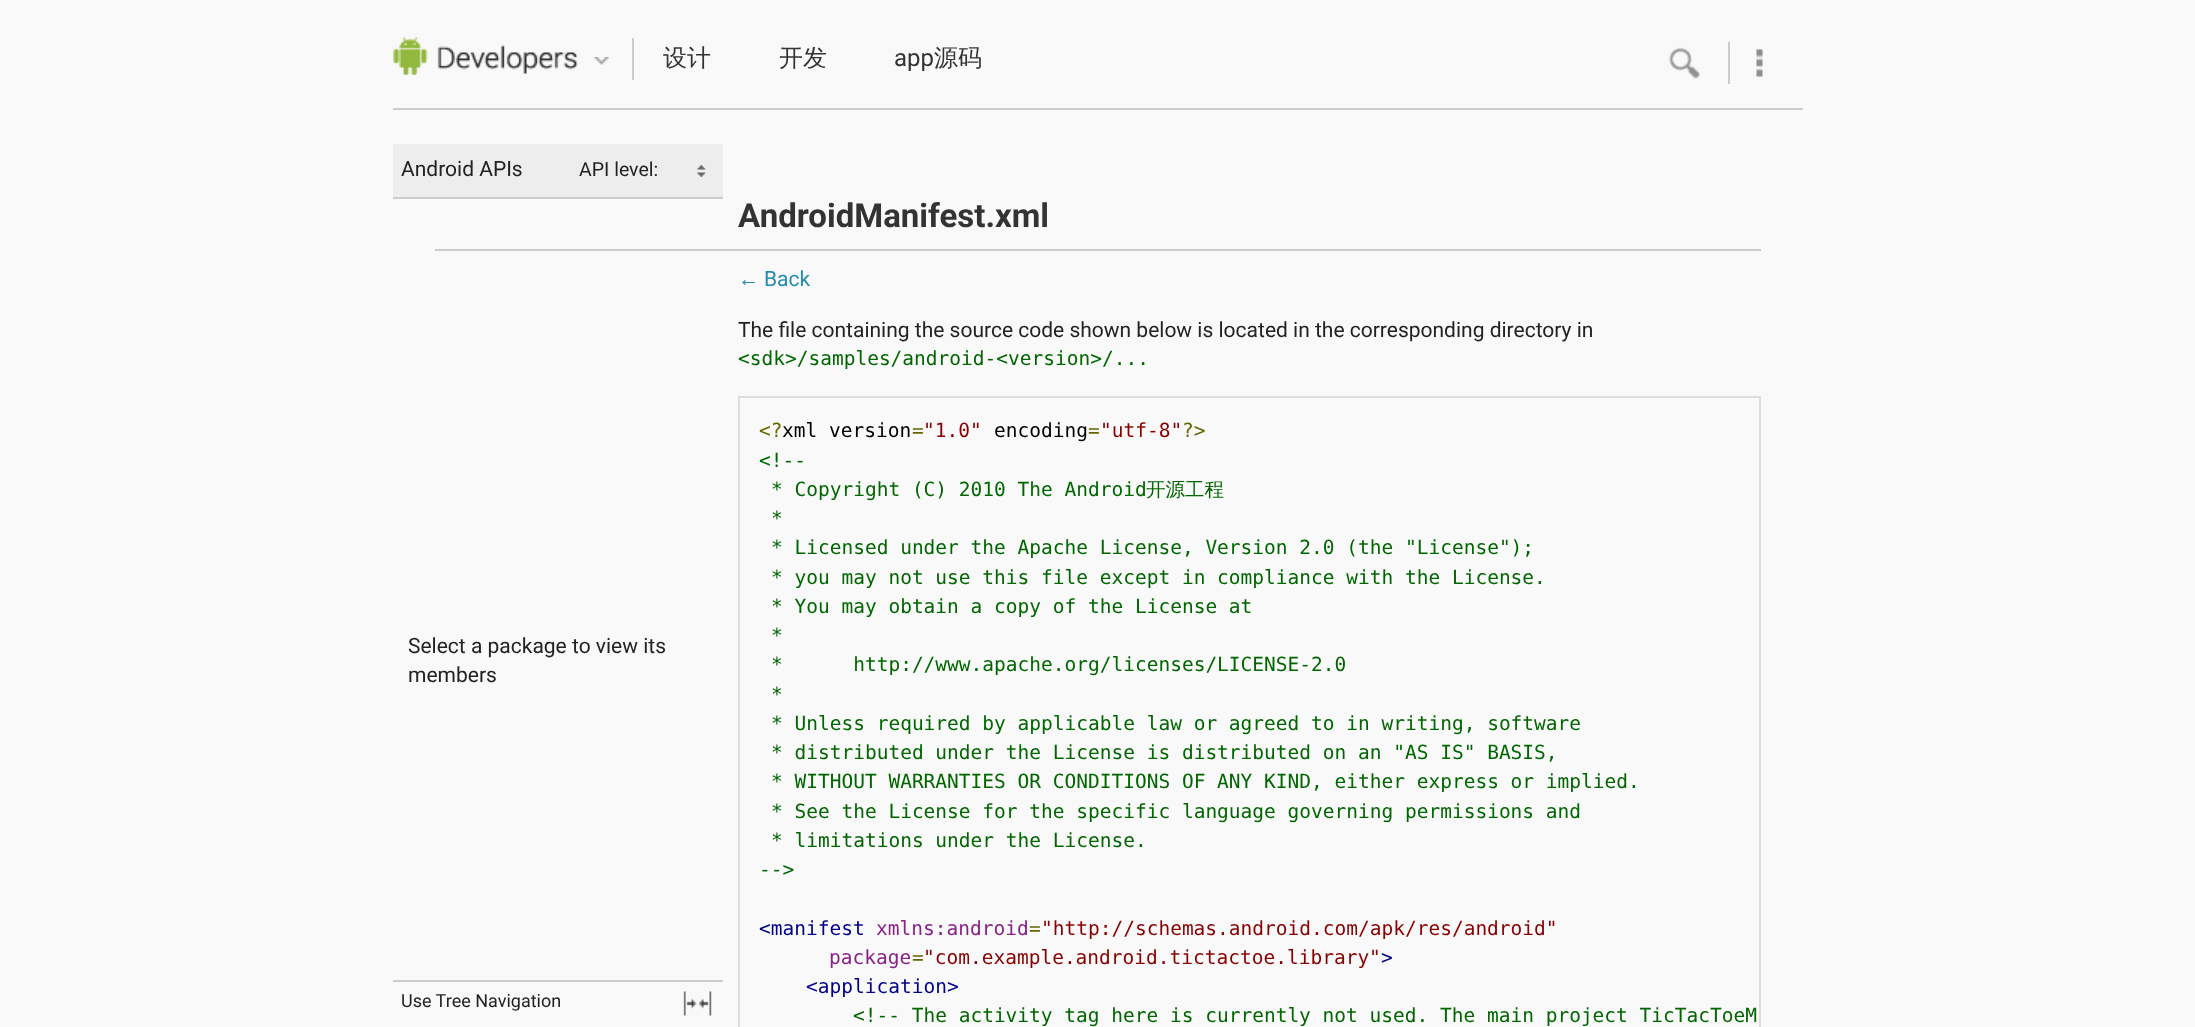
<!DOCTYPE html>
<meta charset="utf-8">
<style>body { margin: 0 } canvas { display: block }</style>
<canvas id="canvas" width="2195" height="1027"></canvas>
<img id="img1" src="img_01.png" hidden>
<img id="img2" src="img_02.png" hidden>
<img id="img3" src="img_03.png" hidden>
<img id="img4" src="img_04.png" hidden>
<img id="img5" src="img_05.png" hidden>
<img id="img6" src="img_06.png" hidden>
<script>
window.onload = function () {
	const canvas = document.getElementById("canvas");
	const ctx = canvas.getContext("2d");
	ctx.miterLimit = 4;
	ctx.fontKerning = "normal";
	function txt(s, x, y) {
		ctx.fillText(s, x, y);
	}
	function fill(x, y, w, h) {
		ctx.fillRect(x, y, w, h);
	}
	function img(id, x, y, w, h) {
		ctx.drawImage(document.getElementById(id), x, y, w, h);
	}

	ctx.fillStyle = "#F9F9F9";
	fill(0, 0, 2195, 1027);
	ctx.fillStyle = "#CCCCCC";
	fill(393, 108, 1410, 2);
	img("img1", 393, 37, 185, 38);
	fill(632, 38, 2, 42);
	img("img2", 594, 57, 15, 8);
	img("img3", 1669, 47, 31, 32);
	img("img4", 1756, 49, 7, 28);
	fill(1728, 42, 2, 42);
	ctx.fillStyle = "#EDEDED";
	fill(393, 144, 330, 53);
	ctx.fillStyle = "#CCCCCC";
	fill(393, 197, 330, 2);
	img("img5", 697, 165, 9, 12);
	fill(393, 980, 330, 2);
	img("img6", 683, 991, 29, 25);
	fill(435, 249, 1326, 2);
	ctx.strokeStyle = "#DDDDDD";
	ctx.lineWidth = 2;
	ctx.strokeRect(739, 397, 1021, 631);
	ctx.font = "500 24px WenQuanYi Zen Hei";
	ctx.fillStyle = "#333333";
	txt("设计", 663, 66);
	txt("开发", 779, 66);
	ctx.font = "24px Roboto";
	txt("app", 894, 66);
	ctx.font = "500 24px WenQuanYi Zen Hei";
	txt("源码", 934, 66);
	ctx.font = "21px Roboto";
	ctx.fillStyle = "#222222";
	txt("Android APIs", 401, 176);
	ctx.font = "19.5px Roboto";
	txt("API level:", 579, 176);
	ctx.font = "21px Roboto";
	txt("Select a package to view its", 408, 653);
	txt("members", 408, 682);
	ctx.font = "18px Roboto";
	txt("Use Tree Navigation", 401, 1007);
	ctx.font = "bold 33px Roboto";
	ctx.fillStyle = "#333333";
	txt("AndroidManifest.xml", 738, 227);
	ctx.font = "21px Liberation Sans";
	ctx.fillStyle = "#258AAF";
	txt("←", 738, 286);
	ctx.font = "21px Roboto";
	txt("Back", 764, 286);
	ctx.fillStyle = "#222222";
	txt("The file containing the source code shown below is located in the corresponding directory in", 738, 337);
	ctx.font = "19.5px DejaVu Sans Mono";
	ctx.fillStyle = "#006600";
	txt("<sdk>/samples/android-<version>/...", 738, 365);
	ctx.fillStyle = "#666600";
	txt("<?", 759, 437);
	ctx.fillStyle = "#000000";
	txt("xml version", 782, 437);
	ctx.fillStyle = "#666600";
	txt("=", 912, 437);
	ctx.fillStyle = "#880000";
	txt("\"1.0\"", 923, 437);
	ctx.fillStyle = "#000000";
	txt("encoding", 994, 437);
	ctx.fillStyle = "#666600";
	txt("=", 1088, 437);
	ctx.fillStyle = "#880000";
	txt("\"utf-8\"", 1100, 437);
	ctx.fillStyle = "#666600";
	txt("?>", 1182, 437);
	ctx.fillStyle = "#006600";
	txt("<\!--", 759, 467);
	txt("* Copyright (C) 2010 The Android", 771, 496);
	ctx.font = "500 19.5px WenQuanYi Zen Hei";
	txt("开源工程", 1146, 496);
	ctx.font = "19.5px DejaVu Sans Mono";
	txt("*", 771, 525);
	txt("* Licensed under the Apache License, Version 2.0 (the \"License\");", 771, 554);
	txt("* you may not use this file except in compliance with the License.", 771, 584);
	txt("* You may obtain a copy of the License at", 771, 613);
	txt("*", 771, 642);
	txt("*      http://www.apache.org/licenses/LICENSE-2.0", 771, 671);
	txt("*", 771, 701);
	txt("* Unless required by applicable law or agreed to in writing, software", 771, 730);
	txt("* distributed under the License is distributed on an \"AS IS\" BASIS,", 771, 759);
	txt("* WITHOUT WARRANTIES OR CONDITIONS OF ANY KIND, either express or implied.", 771, 788);
	txt("* See the License for the specific language governing permissions and", 771, 818);
	txt("* limitations under the License.", 771, 847);
	txt("-->", 759, 876);
	ctx.fillStyle = "#000088";
	txt("<manifest", 759, 935);
	ctx.fillStyle = "#882288";
	txt("xmlns:android", 876, 935);
	ctx.fillStyle = "#666600";
	txt("=", 1029, 935);
	ctx.fillStyle = "#880000";
	txt("\"http://schemas.android.com/apk/res/android\"", 1041, 935);
	ctx.fillStyle = "#882288";
	txt("package", 829, 964);
	ctx.fillStyle = "#666600";
	txt("=", 912, 964);
	ctx.fillStyle = "#880000";
	txt("\"com.example.android.tictactoe.library\"", 923, 964);
	ctx.fillStyle = "#000088";
	txt(">", 1381, 964);
	txt("<application>", 806, 993);
	ctx.fillStyle = "#006600";
	txt("<\!-- The activity tag here is currently not used. The main project TicTacToeM", 853, 1022);
};
</script>
